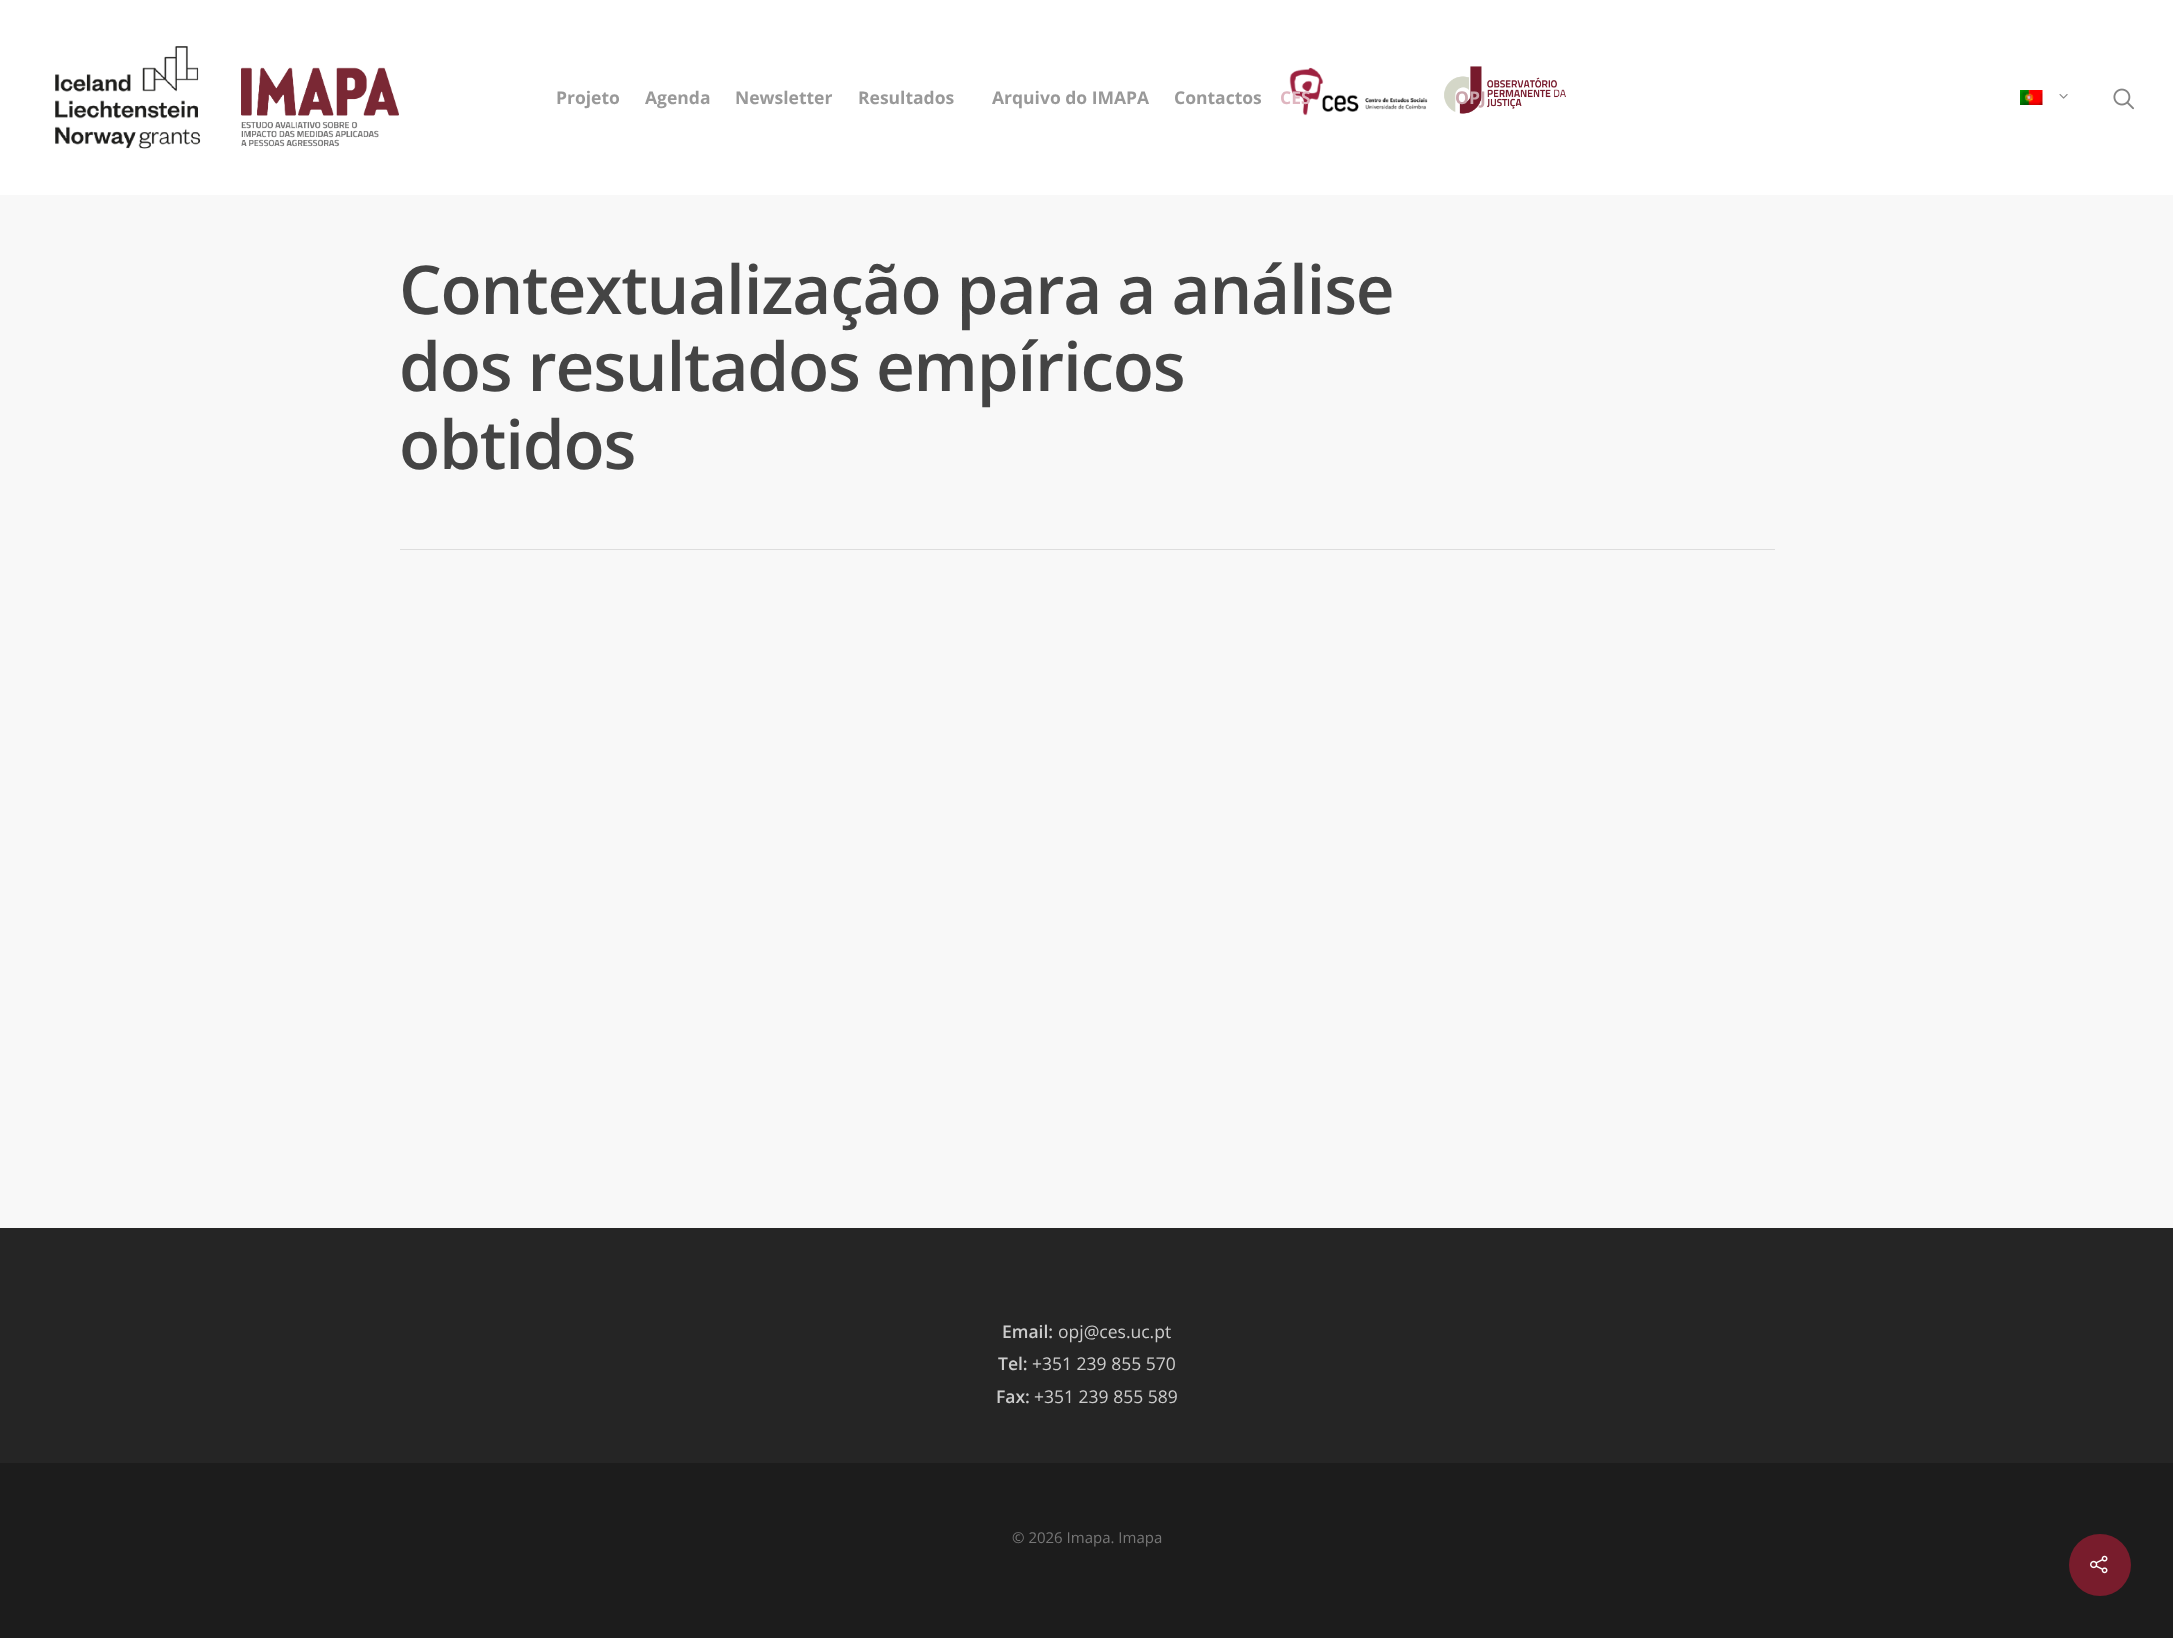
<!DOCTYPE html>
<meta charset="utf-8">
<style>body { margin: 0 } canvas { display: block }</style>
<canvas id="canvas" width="2173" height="1638"></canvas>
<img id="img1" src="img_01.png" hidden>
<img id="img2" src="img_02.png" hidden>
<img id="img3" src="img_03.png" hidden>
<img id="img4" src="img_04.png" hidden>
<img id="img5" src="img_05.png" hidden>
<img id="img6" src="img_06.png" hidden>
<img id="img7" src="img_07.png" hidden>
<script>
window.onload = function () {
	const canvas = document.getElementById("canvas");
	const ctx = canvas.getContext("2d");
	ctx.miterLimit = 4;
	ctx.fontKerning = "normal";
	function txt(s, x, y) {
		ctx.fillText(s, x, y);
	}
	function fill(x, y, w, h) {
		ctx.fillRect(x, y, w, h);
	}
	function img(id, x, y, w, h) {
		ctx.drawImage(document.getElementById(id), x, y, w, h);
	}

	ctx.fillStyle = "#FFFFFF";
	fill(0, 0, 2173, 1638);
	img("img1", 55, 46, 344, 103);
	img("img2", 1289, 67, 139, 49);
	img("img3", 1444, 66, 122, 48);
	img("img4", 2020, 90, 23, 15);
	img("img5", 2059, 94, 9, 5);
	img("img6", 2113, 88, 21, 22);
	ctx.fillStyle = "#F8F8F8";
	fill(0, 195, 2173, 1033);
	ctx.fillStyle = "#DDDDDD";
	fill(400, 549, 1375, 1);
	ctx.fillStyle = "#252525";
	fill(0, 1228, 2173, 235);
	ctx.fillStyle = "#1C1C1C";
	fill(0, 1463, 2173, 175);
	ctx.fillStyle = "#781C2C";
	ctx.beginPath();
	ctx.arc(2100, 1565, 31, 0, Math.PI * 2);
	ctx.fill();
	img("img7", 2090, 1555, 18, 19);
	ctx.font = "bold 17.5px Open Sans";
	ctx.fillStyle = "#999999";
	txt("Projeto", 556, 104);
	txt("Agenda", 645, 104);
	txt("Newsletter", 735, 104);
	txt("Resultados", 858, 104);
	txt("Arquivo do IMAPA", 992, 104);
	txt("Contactos", 1174, 104);
	ctx.fillStyle = "#DFB6C0";
	txt("CES", 1280, 104);
	ctx.fillStyle = "#CAA5AC";
	txt("OPJ", 1455, 104);
	ctx.letterSpacing = "-1.25px";
	ctx.font = "600 67.5px Open Sans";
	ctx.fillStyle = "#444444";
	txt("Contextualização para a análise", 399, 314);
	txt("dos resultados empíricos", 399, 391);
	txt("obtidos", 399, 469);
	ctx.letterSpacing = "0px";
	ctx.font = "600 17.5px Open Sans";
	ctx.fillStyle = "#CCCCCC";
	txt("Email:", 1002, 1338);
	ctx.font = "17.5px Open Sans";
	txt("opj@ces.uc.pt", 1058, 1338);
	ctx.font = "600 17.5px Open Sans";
	txt("Tel:", 998, 1370);
	ctx.font = "17.5px Open Sans";
	txt("+351 239 855 570", 1032, 1370);
	ctx.font = "600 17.5px Open Sans";
	txt("Fax:", 996, 1403);
	ctx.font = "17.5px Open Sans";
	txt("+351 239 855 589", 1034, 1403);
	ctx.font = "15px Open Sans";
	ctx.fillStyle = "#777777";
	txt("© 2026 Imapa. Imapa", 1012, 1543);
};
</script>
